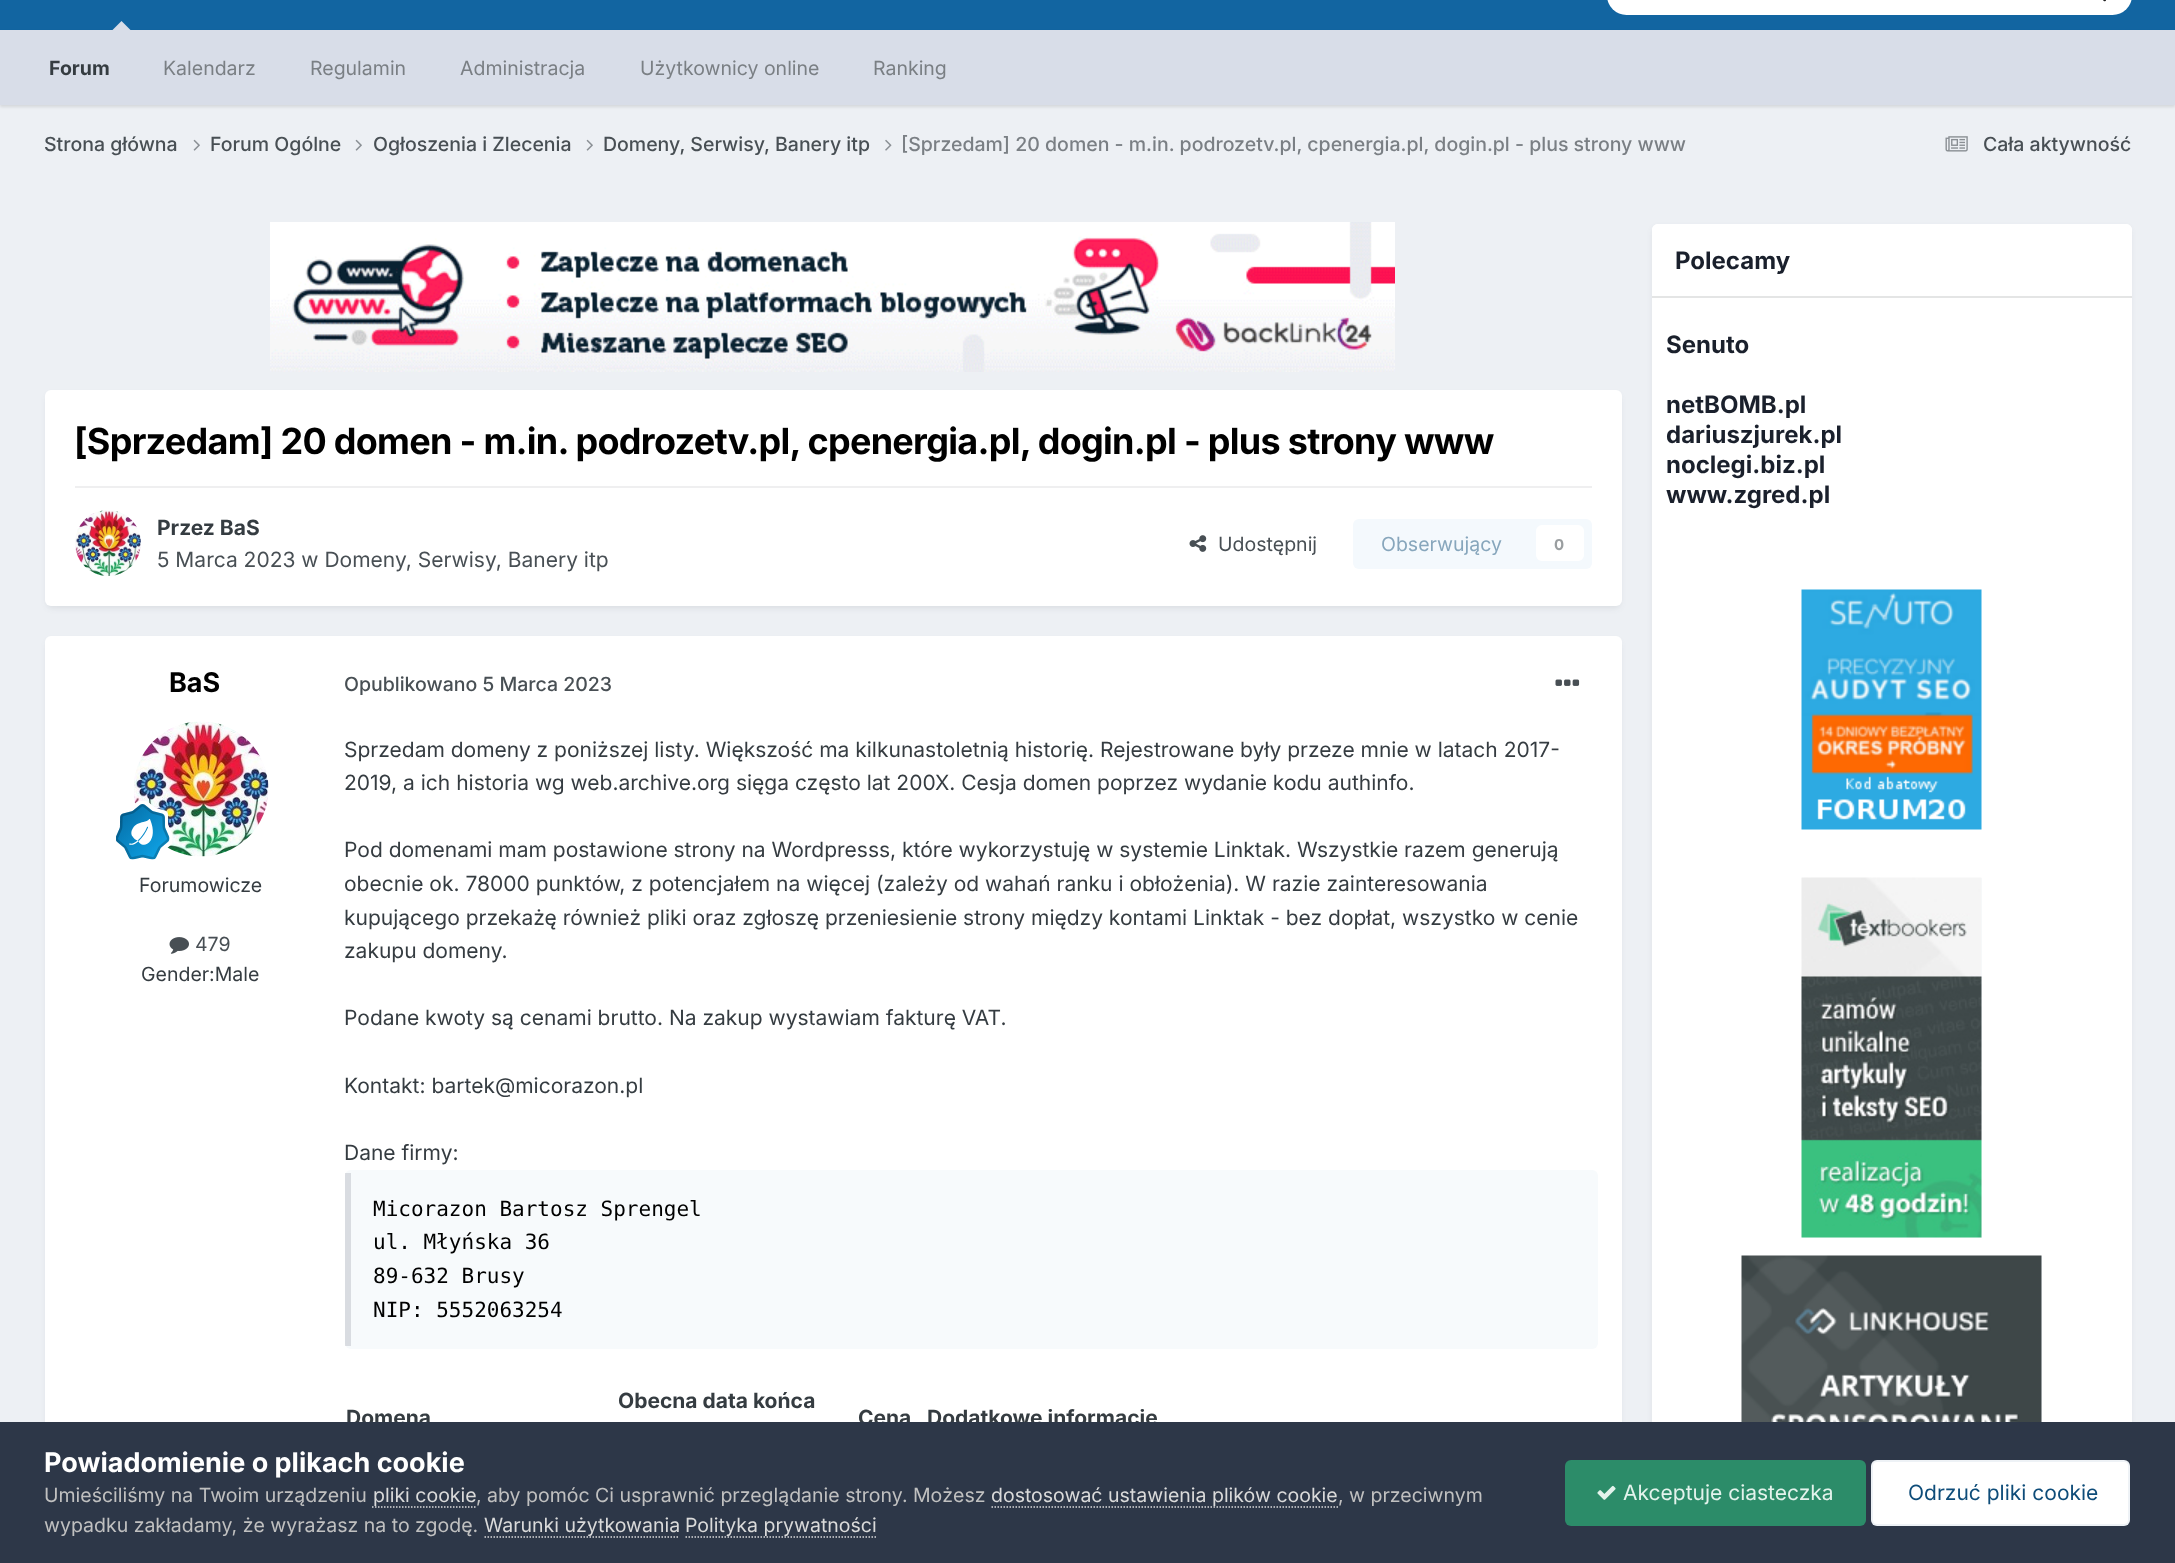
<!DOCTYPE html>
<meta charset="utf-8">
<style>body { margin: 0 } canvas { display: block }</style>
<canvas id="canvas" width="2175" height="1563"></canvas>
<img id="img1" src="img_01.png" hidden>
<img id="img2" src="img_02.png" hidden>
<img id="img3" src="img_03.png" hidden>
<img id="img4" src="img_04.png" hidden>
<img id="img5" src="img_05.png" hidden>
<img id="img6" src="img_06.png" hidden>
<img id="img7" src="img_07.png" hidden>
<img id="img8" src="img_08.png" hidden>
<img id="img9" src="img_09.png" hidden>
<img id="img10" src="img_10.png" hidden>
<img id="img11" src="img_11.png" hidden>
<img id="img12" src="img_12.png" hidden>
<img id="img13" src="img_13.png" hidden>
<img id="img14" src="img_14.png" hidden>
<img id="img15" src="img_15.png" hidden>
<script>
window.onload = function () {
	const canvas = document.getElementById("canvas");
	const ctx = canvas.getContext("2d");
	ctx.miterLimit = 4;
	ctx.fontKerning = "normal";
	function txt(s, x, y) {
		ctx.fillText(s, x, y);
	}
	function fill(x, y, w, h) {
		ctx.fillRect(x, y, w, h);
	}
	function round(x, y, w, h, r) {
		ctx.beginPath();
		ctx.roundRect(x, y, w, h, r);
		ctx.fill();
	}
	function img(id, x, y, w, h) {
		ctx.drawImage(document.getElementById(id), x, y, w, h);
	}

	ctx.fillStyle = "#EDF0F4";
	fill(0, 0, 2175, 1563);
	ctx.fillStyle = "#1265A1";
	fill(0, 0, 2175, 30);
	ctx.fillStyle = "rgba(0, 0, 0, 0.1)";
	ctx.filter = "blur(1.5px)";
	ctx.beginPath();
	ctx.rect(0, 32, 2175, 75);
	ctx.fill();
	ctx.filter = "none";
	ctx.fillStyle = "#D8DDE8";
	fill(0, 30, 2175, 75);
	ctx.fillStyle = "#FFFFFF";
	round(1607, -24, 525, 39, 24);
	img("img1", 2103, 0, 3, 2);
	ctx.fillStyle = "#D8DDE8";
	ctx.beginPath();
	ctx.moveTo(130.5, 30);
	ctx.lineTo(112.5, 30);
	ctx.lineTo(121.5, 21);
	ctx.closePath();
	ctx.fill();
	img("img2", 193, 139, 7, 12);
	img("img2", 355, 139, 7, 12);
	img("img2", 586, 139, 7, 12);
	img("img3", 885, 139, 7, 12);
	img("img4", 1945, 136, 23, 16);
	ctx.fillStyle = "rgba(45, 55, 72, 0.1)";
	ctx.filter = "blur(3px)";
	ctx.beginPath();
	ctx.roundRect(1653, 228, 477, 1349, 5);
	ctx.fill();
	ctx.filter = "none";
	ctx.fillStyle = "#FFFFFF";
	round(1652, 224, 480, 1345, 6);
	ctx.beginPath();
	ctx.roundRect(1652, 224, 480, 73, [6, 6, 0, 0]);
	ctx.fill();
	ctx.fillStyle = "#E4E5E5";
	fill(1652, 296, 480, 2);
	img("img5", 1801, 589, 181, 241);
	ctx.fillStyle = "#F7FAFC";
	fill(1802, 878, 180, 360);
	img("img6", 1801, 877, 181, 361);
	fill(2041, 1256, 1, 166);
	img("img7", 1741, 1255, 301, 167);
	img("img8", 270, 222, 1125, 150);
	ctx.fillStyle = "rgba(45, 55, 72, 0.1)";
	ctx.filter = "blur(3px)";
	ctx.beginPath();
	ctx.roundRect(47, 395, 1573, 213, 5);
	ctx.fill();
	ctx.filter = "none";
	ctx.fillStyle = "#FFFFFF";
	round(45, 390, 1577, 216, 6);
	ctx.fillStyle = "#EFEFF0";
	fill(75, 486, 1517, 2);
	img("img9", 75, 510, 66, 66);
	img("img10", 1189, 535, 18, 17);
	ctx.fillStyle = "#F4F9FD";
	round(1353, 519, 239, 50, 6);
	ctx.fillStyle = "#FFFFFF";
	round(1536, 525, 48, 36, 6);
	ctx.fillStyle = "rgba(45, 55, 72, 0.1)";
	ctx.filter = "blur(3px)";
	ctx.beginPath();
	ctx.roundRect(47, 641, 1573, 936, 5);
	ctx.fill();
	ctx.filter = "none";
	ctx.fillStyle = "#FFFFFF";
	round(45, 636, 1577, 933, 6);
	img("img11", 134, 721, 135, 136);
	img("img12", 116, 801, 57, 59);
	img("img13", 169, 937, 20, 17);
	img("img14", 1555, 679, 25, 7);
	ctx.fillStyle = "#F7FAFC";
	round(345, 1170, 1253, 179, 6);
	ctx.fillStyle = "rgba(45, 55, 72, 0.15)";
	fill(345, 1173, 6, 173);
	ctx.font = "bold 19.5px Inter";
	ctx.fillStyle = "#353C41";
	txt("Forum", 49, 75);
	ctx.font = "19.5px Inter";
	ctx.fillStyle = "#7A7F84";
	txt("Kalendarz", 163, 75);
	txt("Regulamin", 310, 75);
	txt("Administracja", 460, 75);
	txt("Użytkownicy online", 640, 75);
	txt("Ranking", 873, 75);
	ctx.font = "500 19.5px Inter";
	ctx.fillStyle = "#484F54";
	txt("Strona główna", 44, 151);
	txt("Forum Ogólne", 210, 151);
	txt("Ogłoszenia i Zlecenia", 373, 151);
	txt("Domeny, Serwisy, Banery itp", 603, 151);
	ctx.fillStyle = "#7A7F84";
	txt("[Sprzedam] 20 domen - m.in. podrozetv.pl, cpenergia.pl, dogin.pl - plus strony www", 901, 151);
	ctx.fillStyle = "#484F54";
	txt("Cała aktywność", 1983, 151);
	ctx.font = "bold 24px Inter";
	ctx.fillStyle = "#1A202C";
	txt("Polecamy", 1675, 269);
	txt("Senuto", 1666, 353);
	txt("netBOMB.pl", 1666, 413);
	txt("dariuszjurek.pl", 1666, 443);
	txt("noclegi.biz.pl", 1666, 473);
	txt("www.zgred.pl", 1666, 503);
	ctx.letterSpacing = "-0.72px";
	ctx.font = "bold 36px Inter";
	ctx.fillStyle = "#000000";
	txt("[Sprzedam] 20 domen - m.in. podrozetv.pl, cpenergia.pl, dogin.pl - plus strony www", 74, 454);
	ctx.letterSpacing = "0px";
	ctx.font = "bold 21px Inter";
	ctx.fillStyle = "#353C41";
	txt("Przez BaS", 157, 535);
	ctx.font = "21px Inter";
	ctx.fillStyle = "#484F54";
	txt("5 Marca 2023 w Domeny, Serwisy, Banery itp", 157, 567);
	ctx.font = "19.5px Inter";
	txt("Udostępnij", 1218, 551);
	ctx.fillStyle = "#87A6BC";
	txt("Obserwujący", 1381, 551);
	ctx.font = "bold 15px Inter";
	ctx.fillStyle = "#9A9EA0";
	txt("0", 1554, 550);
	ctx.font = "bold 27px Inter";
	ctx.fillStyle = "#000000";
	txt("BaS", 169, 692);
	ctx.font = "19.5px Inter";
	ctx.fillStyle = "#353C41";
	txt("Forumowicze", 139, 892);
	ctx.fillStyle = "#484F54";
	txt("479", 195, 951);
	ctx.fillStyle = "#353C41";
	txt("Gender:Male", 141, 981);
	ctx.font = "500 19.5px Inter";
	ctx.fillStyle = "#484F54";
	txt("Opublikowano 5 Marca 2023", 344, 691);
	ctx.font = "21px Inter";
	ctx.fillStyle = "#353C41";
	txt("Sprzedam domeny z poniższej listy. Większość ma kilkunastoletnią historię. Rejestrowane były przeze mnie w latach 2017-", 344, 757);
	txt("2019, a ich historia wg web.archive.org sięga często lat 200X. Cesja domen poprzez wydanie kodu authinfo.", 344, 790);
	txt("Pod domenami mam postawione strony na Wordpresss, które wykorzystuję w systemie Linktak. Wszystkie razem generują", 344, 857);
	txt("obecnie ok. 78000 punktów, z potencjałem na więcej (zależy od wahań ranku i obłożenia). W razie zainteresowania", 344, 891);
	txt("kupującego przekażę również pliki oraz zgłoszę przeniesienie strony między kontami Linktak - bez dopłat, wszystko w cenie", 344, 925);
	txt("zakupu domeny.", 344, 958);
	txt("Podane kwoty są cenami brutto. Na zakup wystawiam fakturę VAT.", 344, 1025);
	txt("Kontakt: bartek@micorazon.pl", 344, 1093);
	txt("Dane firmy:", 344, 1160);
	ctx.font = "21px DejaVu Sans Mono";
	ctx.fillStyle = "#000000";
	txt("Micorazon Bartosz Sprengel", 373, 1216);
	txt("ul. Młyńska 36", 373, 1249);
	txt("89-632 Brusy", 373, 1283);
	txt("NIP: 5552063254", 373, 1317);
	ctx.font = "bold 21px Inter";
	ctx.fillStyle = "#353C41";
	txt("Obecna data końca", 618, 1408);
	txt("Domena", 346, 1425);
	txt("Cena", 858, 1425);
	txt("Dodatkowe informacje", 927, 1425);
	ctx.fillStyle = "#2D3748";
	fill(0, 1422, 2175, 141);
	ctx.font = "bold 27px Inter";
	ctx.fillStyle = "#FFFFFF";
	txt("Powiadomienie o plikach cookie", 44, 1472);
	ctx.font = "19.5px Inter";
	ctx.fillStyle = "#C0C0C0";
	txt("Umieściliśmy na Twoim urządzeniu", 44, 1502);
	ctx.fillStyle = "#DADADA";
	txt("pliki cookie", 373, 1502);
	ctx.beginPath();
	ctx.moveTo(372, 1507);
	ctx.lineTo(477, 1507);
	ctx.strokeStyle = "#DADADA";
	ctx.lineWidth = 1.5;
	ctx.setLineDash([1.5, 1.5]);
	ctx.stroke();
	ctx.fillStyle = "#C0C0C0";
	txt(", aby pomóc Ci usprawnić przeglądanie strony. Możesz", 476, 1502);
	ctx.fillStyle = "#DADADA";
	txt("dostosować ustawienia plików cookie", 991, 1502);
	ctx.beginPath();
	ctx.moveTo(991.5, 1507);
	ctx.lineTo(1338, 1507);
	ctx.stroke();
	ctx.fillStyle = "#C0C0C0";
	txt(", w przeciwnym", 1338, 1502);
	txt("wypadku zakładamy, że wyrażasz na to zgodę.", 44, 1532);
	ctx.beginPath();
	ctx.moveTo(484.5, 1537);
	ctx.lineTo(679.5, 1537);
	ctx.stroke();
	ctx.fillStyle = "#DADADA";
	txt("Warunki użytkowania", 484, 1532);
	ctx.beginPath();
	ctx.moveTo(685.5, 1537);
	ctx.lineTo(877.5, 1537);
	ctx.stroke();
	txt("Polityka prywatności", 685, 1532);
	ctx.fillStyle = "#2C8C69";
	round(1565, 1460, 301, 66, 6);
	img("img15", 1597, 1485, 19, 15);
	ctx.font = "21px Inter";
	ctx.fillStyle = "#E3F3EC";
	txt("Akceptuje ciasteczka", 1623, 1500);
	ctx.fillStyle = "#FFFFFF";
	round(1871, 1460, 259, 66, 6);
	ctx.beginPath();
	ctx.roundRect(1872, 1461, 257, 64, 5);
	ctx.strokeStyle = "rgba(14, 76, 121, 0.07)";
	ctx.lineWidth = 2;
	ctx.setLineDash([]);
	ctx.stroke();
	ctx.fillStyle = "#0E4C79";
	txt("Odrzuć pliki cookie", 1908, 1500);
};
</script>
